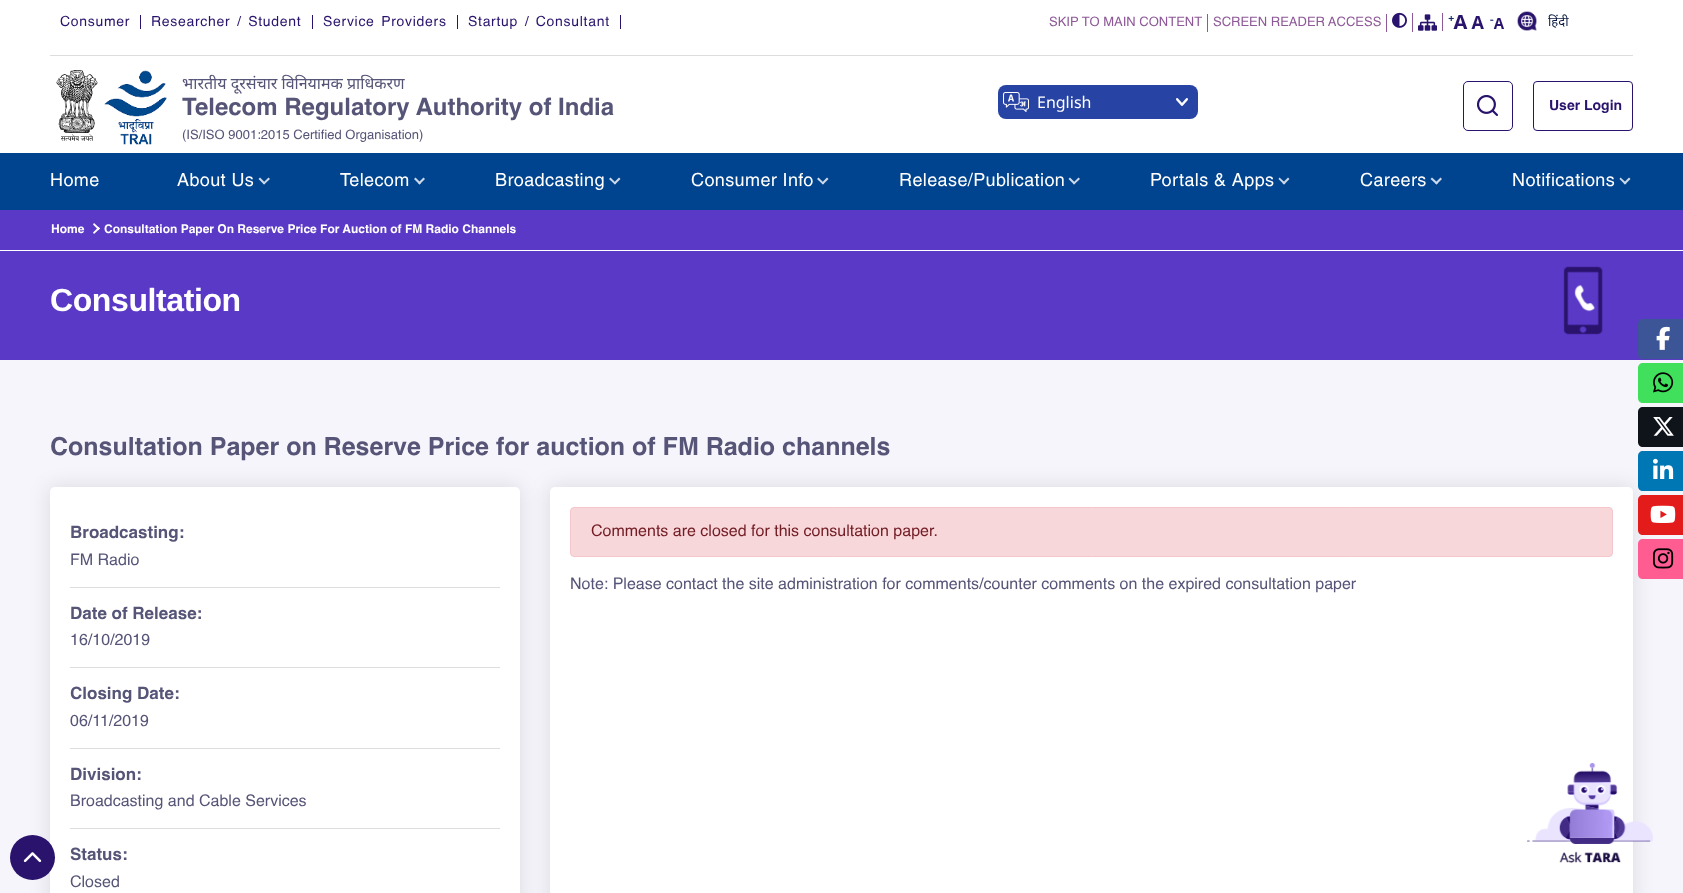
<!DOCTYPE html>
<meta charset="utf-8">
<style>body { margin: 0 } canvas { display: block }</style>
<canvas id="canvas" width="1683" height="893"></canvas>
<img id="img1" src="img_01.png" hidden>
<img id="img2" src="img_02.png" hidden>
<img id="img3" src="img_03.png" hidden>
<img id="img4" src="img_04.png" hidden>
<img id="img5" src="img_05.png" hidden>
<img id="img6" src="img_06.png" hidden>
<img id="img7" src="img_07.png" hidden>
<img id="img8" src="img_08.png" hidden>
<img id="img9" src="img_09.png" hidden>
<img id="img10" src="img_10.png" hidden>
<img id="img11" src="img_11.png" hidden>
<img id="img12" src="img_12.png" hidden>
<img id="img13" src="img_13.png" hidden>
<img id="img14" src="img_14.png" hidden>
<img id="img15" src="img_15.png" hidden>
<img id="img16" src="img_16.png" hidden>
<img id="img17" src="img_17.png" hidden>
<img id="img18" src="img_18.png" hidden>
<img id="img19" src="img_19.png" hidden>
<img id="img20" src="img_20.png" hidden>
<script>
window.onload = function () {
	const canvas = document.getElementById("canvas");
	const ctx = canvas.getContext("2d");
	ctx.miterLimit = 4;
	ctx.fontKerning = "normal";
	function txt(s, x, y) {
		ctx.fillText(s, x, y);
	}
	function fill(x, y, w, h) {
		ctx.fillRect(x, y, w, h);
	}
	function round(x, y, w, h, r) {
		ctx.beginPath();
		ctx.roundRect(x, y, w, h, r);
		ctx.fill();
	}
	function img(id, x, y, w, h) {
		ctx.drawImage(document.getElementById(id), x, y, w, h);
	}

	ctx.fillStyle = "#FFFFFF";
	fill(0, 0, 1683, 893);
	ctx.fillStyle = "#DDDDDD";
	fill(50, 55, 1583, 1);
	ctx.fillStyle = "#29136C";
	fill(140, 15, 1, 14);
	fill(312, 15, 1, 14);
	fill(457, 15, 1, 14);
	fill(620, 15, 1, 14);
	ctx.fillStyle = "#8E5998";
	fill(1207, 14, 1, 18);
	fill(1386, 14, 1, 18);
	fill(1412, 13, 1, 19);
	img("img1", 1392, 12, 15, 16);
	img("img2", 1418, 14, 19, 17);
	fill(1442, 13, 1, 18);
	img("img3", 1448, 15, 20, 14);
	img("img4", 1471, 16, 13, 13);
	img("img5", 1490, 18, 14, 11);
	img("img6", 1517, 11, 20, 20);
	img("img7", 56, 70, 42, 71);
	img("img8", 104, 70, 63, 75);
	ctx.beginPath();
	ctx.roundRect(1463.5, 81.5, 49, 49, 4.5);
	ctx.strokeStyle = "#29136C";
	ctx.stroke();
	img("img9", 1477, 95, 21, 21);
	ctx.beginPath();
	ctx.roundRect(1533.5, 81.5, 99, 49, 3.5);
	ctx.stroke();
	ctx.fillStyle = "#00438E";
	fill(0, 153, 1683, 57);
	ctx.fillStyle = "#CCD9E8";
	ctx.beginPath();
	ctx.moveTo(268.5, 177.5);
	ctx.lineTo(270, 179);
	ctx.lineTo(264, 184.5);
	ctx.lineTo(263, 183);
	ctx.closePath();
	ctx.fill();
	ctx.beginPath();
	ctx.moveTo(260, 177.5);
	ctx.lineTo(265.5, 183);
	ctx.lineTo(264, 184.5);
	ctx.lineTo(258.5, 179);
	ctx.closePath();
	ctx.fill();
	ctx.beginPath();
	ctx.moveTo(423.5, 177.5);
	ctx.lineTo(425, 179);
	ctx.lineTo(419.5, 184.5);
	ctx.lineTo(418, 183);
	ctx.closePath();
	ctx.fill();
	ctx.beginPath();
	ctx.moveTo(415.5, 177.5);
	ctx.lineTo(421, 183);
	ctx.lineTo(419.5, 184.5);
	ctx.lineTo(414, 179);
	ctx.closePath();
	ctx.fill();
	ctx.beginPath();
	ctx.moveTo(619, 177.5);
	ctx.lineTo(620.5, 179);
	ctx.lineTo(615, 184.5);
	ctx.lineTo(613.5, 183);
	ctx.closePath();
	ctx.fill();
	ctx.beginPath();
	ctx.moveTo(610.5, 177.5);
	ctx.lineTo(616, 183);
	ctx.lineTo(615, 184.5);
	ctx.lineTo(609, 179);
	ctx.closePath();
	ctx.fill();
	ctx.beginPath();
	ctx.moveTo(827, 177.5);
	ctx.lineTo(828.5, 179);
	ctx.lineTo(823, 184.5);
	ctx.lineTo(821.5, 183);
	ctx.closePath();
	ctx.fill();
	ctx.beginPath();
	ctx.moveTo(818.5, 177.5);
	ctx.lineTo(824, 183);
	ctx.lineTo(823, 184.5);
	ctx.lineTo(817, 179);
	ctx.closePath();
	ctx.fill();
	ctx.beginPath();
	ctx.moveTo(1078.5, 177.5);
	ctx.lineTo(1080, 179);
	ctx.lineTo(1074, 184.5);
	ctx.lineTo(1073, 183);
	ctx.closePath();
	ctx.fill();
	ctx.beginPath();
	ctx.moveTo(1070, 177.5);
	ctx.lineTo(1075.5, 183);
	ctx.lineTo(1074, 184.5);
	ctx.lineTo(1068.5, 179);
	ctx.closePath();
	ctx.fill();
	ctx.beginPath();
	ctx.moveTo(1288, 177.5);
	ctx.lineTo(1289.5, 179);
	ctx.lineTo(1284, 184.5);
	ctx.lineTo(1282.5, 183);
	ctx.closePath();
	ctx.fill();
	ctx.beginPath();
	ctx.moveTo(1279.5, 177.5);
	ctx.lineTo(1285.5, 183);
	ctx.lineTo(1284, 184.5);
	ctx.lineTo(1278.5, 179);
	ctx.closePath();
	ctx.fill();
	ctx.beginPath();
	ctx.moveTo(1440.5, 177.5);
	ctx.lineTo(1442, 179);
	ctx.lineTo(1436.5, 184.5);
	ctx.lineTo(1435, 183);
	ctx.closePath();
	ctx.fill();
	ctx.beginPath();
	ctx.moveTo(1432, 177.5);
	ctx.lineTo(1438, 183);
	ctx.lineTo(1436.5, 184.5);
	ctx.lineTo(1430.5, 179);
	ctx.closePath();
	ctx.fill();
	ctx.beginPath();
	ctx.moveTo(1629, 177.5);
	ctx.lineTo(1630.5, 179);
	ctx.lineTo(1625, 184.5);
	ctx.lineTo(1623.5, 183);
	ctx.closePath();
	ctx.fill();
	ctx.beginPath();
	ctx.moveTo(1620.5, 177.5);
	ctx.lineTo(1626.5, 183);
	ctx.lineTo(1625, 184.5);
	ctx.lineTo(1619.5, 179);
	ctx.closePath();
	ctx.fill();
	ctx.fillStyle = "#5A39C6";
	fill(0, 210, 1683, 150);
	ctx.fillStyle = "#3B5596";
	ctx.beginPath();
	ctx.moveTo(1643, 319);
	ctx.lineTo(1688, 319);
	ctx.lineTo(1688, 359);
	ctx.lineTo(1643, 359);
	ctx.bezierCurveTo(1640, 359, 1638, 357, 1638, 354);
	ctx.lineTo(1638, 324);
	ctx.bezierCurveTo(1638, 321, 1640, 319, 1643, 319);
	ctx.closePath();
	ctx.fill();
	img("img10", 1656, 326, 14, 24);
	ctx.fillStyle = "#F7F5FC";
	fill(0, 360, 1683, 533);
	ctx.fillStyle = "#40E05D";
	ctx.beginPath();
	ctx.moveTo(1643, 363);
	ctx.lineTo(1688, 363);
	ctx.lineTo(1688, 403);
	ctx.lineTo(1643, 403);
	ctx.bezierCurveTo(1640, 403, 1638, 401, 1638, 398);
	ctx.lineTo(1638, 368);
	ctx.bezierCurveTo(1638, 365, 1640, 363, 1643, 363);
	ctx.closePath();
	ctx.fill();
	img("img11", 1653, 372, 21, 21);
	ctx.fillStyle = "#0F141A";
	ctx.beginPath();
	ctx.moveTo(1643, 407);
	ctx.lineTo(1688, 407);
	ctx.lineTo(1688, 447);
	ctx.lineTo(1643, 447);
	ctx.bezierCurveTo(1640, 447, 1638, 445, 1638, 442);
	ctx.lineTo(1638, 412);
	ctx.bezierCurveTo(1638, 409, 1640, 407, 1643, 407);
	ctx.closePath();
	ctx.fill();
	img("img12", 1653, 417, 21, 19);
	ctx.fillStyle = "rgba(0, 0, 0, 0.1)";
	ctx.filter = "blur(10px)";
	ctx.beginPath();
	ctx.roundRect(49, 486, 472, 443, 6);
	ctx.fill();
	ctx.filter = "none";
	ctx.fillStyle = "#FFFFFF";
	round(50, 487, 470, 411, 5);
	ctx.fillStyle = "rgba(0, 0, 0, 0.1)";
	ctx.filter = "blur(10px)";
	ctx.beginPath();
	ctx.roundRect(549, 486, 1085, 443, 6);
	ctx.fill();
	ctx.filter = "none";
	ctx.fillStyle = "#0077B5";
	ctx.beginPath();
	ctx.moveTo(1643, 451);
	ctx.lineTo(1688, 451);
	ctx.lineTo(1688, 491);
	ctx.lineTo(1643, 491);
	ctx.bezierCurveTo(1640, 491, 1638, 489, 1638, 486);
	ctx.lineTo(1638, 456);
	ctx.bezierCurveTo(1638, 453, 1640, 451, 1643, 451);
	ctx.closePath();
	ctx.fill();
	img("img13", 1653, 458, 21, 21);
	ctx.fillStyle = "#E41B1B";
	ctx.beginPath();
	ctx.moveTo(1643, 495);
	ctx.lineTo(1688, 495);
	ctx.lineTo(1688, 535);
	ctx.lineTo(1643, 535);
	ctx.bezierCurveTo(1640, 535, 1638, 533, 1638, 530);
	ctx.lineTo(1638, 500);
	ctx.bezierCurveTo(1638, 497, 1640, 495, 1643, 495);
	ctx.closePath();
	ctx.fill();
	img("img14", 1650, 505, 26, 18);
	ctx.fillStyle = "#FF5C92";
	ctx.beginPath();
	ctx.moveTo(1643, 539);
	ctx.lineTo(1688, 539);
	ctx.lineTo(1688, 579);
	ctx.lineTo(1643, 579);
	ctx.bezierCurveTo(1640, 579, 1638, 577, 1638, 574);
	ctx.lineTo(1638, 544);
	ctx.bezierCurveTo(1638, 541, 1640, 539, 1643, 539);
	ctx.closePath();
	ctx.fill();
	img("img15", 1653, 548, 21, 21);
	ctx.fillStyle = "#29136C";
	ctx.beginPath();
	ctx.arc(32.5, 857.5, 22.5, 0, Math.PI * 2);
	ctx.fill();
	img("img16", 23, 852, 19, 11);
	ctx.fillStyle = "#FFFFFF";
	fill(0, 250, 1683, 1);
	ctx.beginPath();
	ctx.moveTo(94, 223);
	ctx.lineTo(100, 228.5);
	ctx.lineTo(98.5, 230);
	ctx.lineTo(93, 224.5);
	ctx.closePath();
	ctx.fill();
	ctx.beginPath();
	ctx.moveTo(98.5, 227);
	ctx.lineTo(100, 228.5);
	ctx.lineTo(94, 234);
	ctx.lineTo(93, 232.5);
	ctx.closePath();
	ctx.fill();
	img("img17", 1563, 266, 40, 69);
	ctx.fillStyle = "#DDDDDD";
	fill(70, 587, 430, 1);
	fill(70, 667, 430, 1);
	fill(70, 748, 430, 1);
	fill(70, 828, 430, 1);
	ctx.fillStyle = "#FFFFFF";
	round(550, 487, 1083, 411, 5);
	ctx.fillStyle = "#F8D7DA";
	ctx.beginPath();
	ctx.roundRect(570.5, 507.5, 1042, 49, 3.5);
	ctx.fill();
	ctx.strokeStyle = "#F5C6CB";
	ctx.stroke();
	ctx.fillStyle = "#2743A3";
	round(998, 85, 200, 34, 8);
	img("img18", 1003, 92, 26, 20);
	img("img19", 1176, 98, 12, 8);
	img("img20", 1527, 763, 126, 100);
	ctx.letterSpacing = "0.7px";
	ctx.font = "14px Helvetica";
	ctx.fillStyle = "#29136C";
	txt("Consumer", 60, 26);
	ctx.wordSpacing = "2px";
	txt("Researcher / Student", 151, 26);
	txt("Service Providers", 323, 26);
	txt("Startup / Consultant", 468, 26);
	ctx.letterSpacing = "0px";
	ctx.wordSpacing = "0px";
	ctx.font = "13px Helvetica";
	ctx.fillStyle = "#8E5998";
	txt("SKIP TO MAIN CONTENT", 1049, 26);
	txt("SCREEN READER ACCESS", 1213, 26);
	ctx.font = "13px Noto Sans";
	ctx.fillStyle = "#0A1941";
	txt("हिंदी", 1548, 26);
	ctx.font = "16px Noto Sans";
	ctx.fillStyle = "#565578";
	txt("भारतीय दूरसंचार विनियामक प्राधिकरण", 182, 89);
	ctx.font = "bold 24px Helvetica";
	txt("Telecom Regulatory Authority of India", 182, 115);
	ctx.font = "13px Helvetica";
	txt("(IS/ISO 9001:2015 Certified Organisation)", 182, 139);
	ctx.font = "bold 14px Helvetica";
	ctx.fillStyle = "#29136C";
	txt("User Login", 1549, 110);
	ctx.letterSpacing = "0.4px";
	ctx.font = "18px 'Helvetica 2'";
	ctx.fillStyle = "#FFFFFF";
	txt("Home", 50, 186);
	txt("About Us", 177, 186);
	txt("Telecom", 340, 186);
	txt("Broadcasting", 495, 186);
	txt("Consumer Info", 691, 186);
	txt("Release/Publication", 899, 186);
	txt("Portals & Apps", 1150, 186);
	txt("Careers", 1360, 186);
	txt("Notifications", 1512, 186);
	ctx.letterSpacing = "0px";
	ctx.font = "bold 12px Helvetica";
	txt("Home", 51, 233);
	txt("Consultation Paper On Reserve Price For Auction of FM Radio Channels", 104, 233);
	ctx.letterSpacing = "-0.4px";
	ctx.font = "bold 32px Liberation Sans";
	txt("Consultation", 50, 311);
	ctx.letterSpacing = "0px";
	ctx.font = "bold 25px Helvetica";
	ctx.fillStyle = "#565578";
	txt("Consultation Paper on Reserve Price for auction of FM Radio channels", 50, 455);
	ctx.font = "bold 17px Helvetica";
	txt("Broadcasting:", 70, 538);
	ctx.font = "16px Helvetica";
	txt("FM Radio", 70, 565);
	ctx.font = "bold 17px Helvetica";
	txt("Date of Release:", 70, 619);
	ctx.font = "16px Helvetica";
	txt("16/10/2019", 70, 645);
	ctx.font = "bold 17px Helvetica";
	txt("Closing Date:", 70, 699);
	ctx.font = "16px Helvetica";
	txt("06/11/2019", 70, 726);
	ctx.font = "bold 17px Helvetica";
	txt("Division:", 70, 780);
	ctx.font = "16px Helvetica";
	txt("Broadcasting and Cable Services", 70, 806);
	ctx.font = "bold 17px Helvetica";
	txt("Status:", 70, 860);
	ctx.font = "16px Helvetica";
	txt("Closed", 70, 887);
	ctx.fillStyle = "#721C24";
	txt("Comments are closed for this consultation paper.", 591, 536);
	ctx.fillStyle = "#565578";
	txt("Note: Please contact the site administration for comments/counter comments on the expired consultation paper", 570, 589);
	ctx.font = "16px 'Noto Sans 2'";
	ctx.fillStyle = "#FFFFFF";
	txt("English", 1037, 108);
};
</script>
